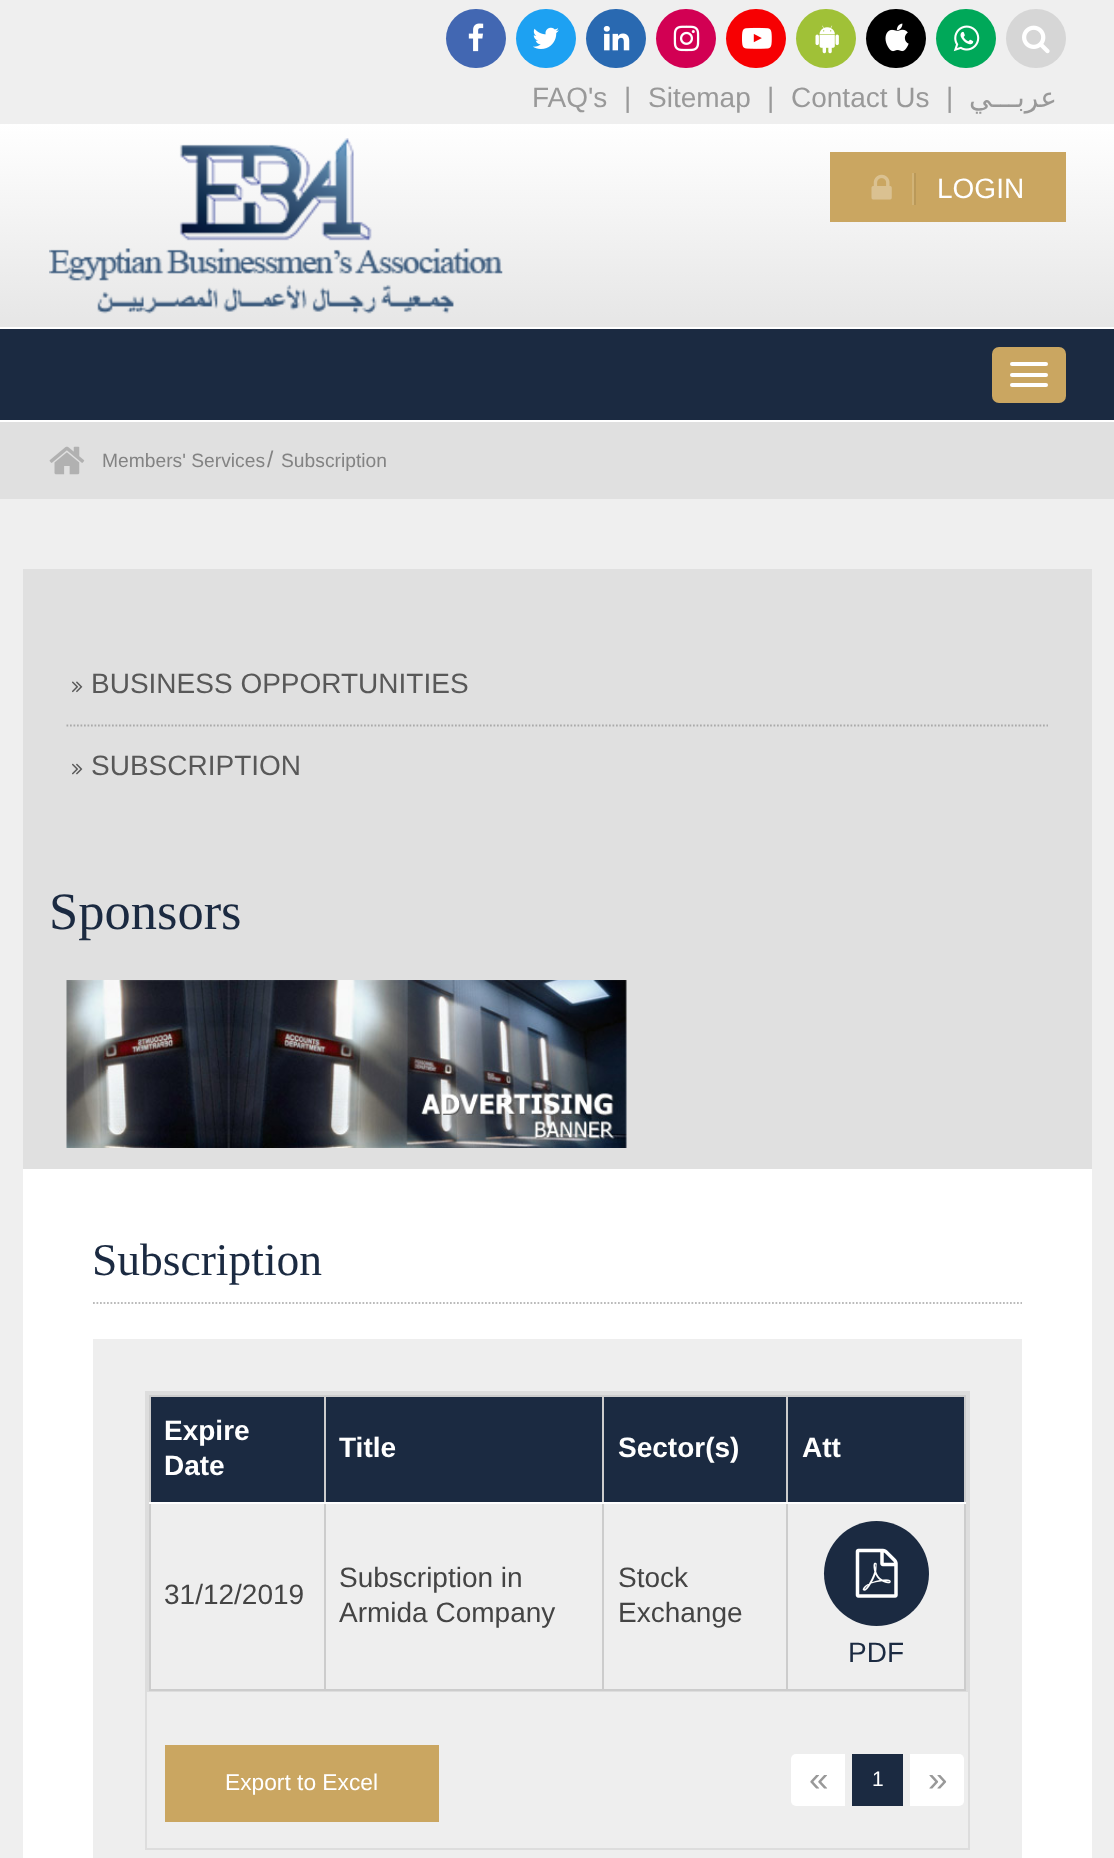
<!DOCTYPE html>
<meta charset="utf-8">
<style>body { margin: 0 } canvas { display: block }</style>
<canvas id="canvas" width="1114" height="1858"></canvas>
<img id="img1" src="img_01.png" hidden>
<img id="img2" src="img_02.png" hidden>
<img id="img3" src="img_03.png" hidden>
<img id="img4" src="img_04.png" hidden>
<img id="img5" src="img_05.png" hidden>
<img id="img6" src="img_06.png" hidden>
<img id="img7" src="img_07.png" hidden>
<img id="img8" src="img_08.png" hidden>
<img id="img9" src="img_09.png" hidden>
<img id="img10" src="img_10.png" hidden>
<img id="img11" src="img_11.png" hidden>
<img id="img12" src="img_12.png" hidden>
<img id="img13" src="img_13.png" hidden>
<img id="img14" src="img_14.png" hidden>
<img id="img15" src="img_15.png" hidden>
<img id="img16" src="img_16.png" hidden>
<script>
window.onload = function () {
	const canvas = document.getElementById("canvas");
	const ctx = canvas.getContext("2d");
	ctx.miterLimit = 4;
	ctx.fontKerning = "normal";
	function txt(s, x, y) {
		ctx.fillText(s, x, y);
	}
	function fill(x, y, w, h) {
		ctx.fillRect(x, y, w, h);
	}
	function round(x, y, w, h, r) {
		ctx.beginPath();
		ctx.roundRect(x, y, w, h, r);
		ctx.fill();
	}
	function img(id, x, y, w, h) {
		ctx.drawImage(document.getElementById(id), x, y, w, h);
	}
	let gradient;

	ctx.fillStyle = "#EFEFEF";
	fill(0, 0, 1114, 1858);
	ctx.fillStyle = "#4267B2";
	round(446, 9, 60, 59, 29.5);
	img("img1", 468, 23, 16, 29);
	ctx.fillStyle = "#1DA1F2";
	round(516, 9, 60, 59, 29.5);
	img("img2", 533, 27, 26, 22);
	ctx.fillStyle = "#2969B1";
	round(586, 9, 60, 59, 29.5);
	img("img3", 603, 26, 27, 25);
	ctx.fillStyle = "#D20053";
	round(656, 9, 60, 59, 29.5);
	img("img4", 673, 25, 27, 27);
	ctx.fillStyle = "#F70002";
	round(726, 9, 60, 59, 29.5);
	img("img5", 742, 27, 30, 22);
	ctx.fillStyle = "#A0C137";
	round(796, 9, 60, 59, 29.5);
	img("img6", 815, 25, 24, 29);
	ctx.fillStyle = "#000000";
	round(866, 9, 60, 59, 29.5);
	img("img7", 885, 23, 24, 29);
	ctx.fillStyle = "#00A859";
	round(936, 9, 60, 59, 29.5);
	img("img8", 953, 25, 27, 27);
	ctx.fillStyle = "#D6D6D6";
	round(1006, 9, 60, 59, 29.5);
	img("img9", 1022, 25, 28, 29);
	gradient = ctx.createLinearGradient(557, 124, 557, 327);
	gradient.addColorStop(0, "#FFFFFF");
	gradient.addColorStop(1, "#E6E6E6");
	ctx.fillStyle = gradient;
	fill(0, 124, 1114, 203);
	img("img10", 49, 138, 454, 176);
	ctx.fillStyle = "#CAA661";
	fill(830, 152, 236, 70);
	ctx.fillStyle = "#D1B377";
	fill(912, 173, 2, 32);
	img("img11", 871, 174, 21, 26);
	ctx.fillStyle = "#BA9959";
	fill(914, 173, 2, 32);
	ctx.fillStyle = "#1B2A41";
	fill(0, 329, 1114, 91);
	ctx.fillStyle = "#FFFFFF";
	fill(0, 327, 1114, 2);
	fill(0, 420, 1114, 2);
	ctx.fillStyle = "#CAA661";
	round(992, 347, 74, 56, 7);
	ctx.fillStyle = "#FFFFFF";
	round(1010, 362, 38, 4, 2);
	round(1010, 373, 38, 4, 2);
	round(1010, 383, 38, 4, 2);
	ctx.fillStyle = "#E0E0E0";
	fill(0, 422, 1114, 77);
	img("img12", 49, 446, 36, 29);
	fill(23, 569, 1069, 600);
	ctx.beginPath();
	ctx.moveTo(66.5, 725.5);
	ctx.lineTo(1048, 725.5);
	ctx.strokeStyle = "#AAAAAA";
	ctx.lineWidth = 1.8;
	ctx.setLineDash([1.75, 1.75]);
	ctx.stroke();
	img("img13", 72, 681, 11, 12);
	img("img14", 72, 763, 11, 12);
	img("img15", 66, 980, 561, 168);
	ctx.fillStyle = "#FFFFFF";
	fill(23, 1169, 1069, 689);
	ctx.beginPath();
	ctx.moveTo(93, 1303);
	ctx.lineTo(1022, 1303);
	ctx.strokeStyle = "#BBBBBB";
	ctx.stroke();
	ctx.fillStyle = "#EEEEEE";
	fill(93, 1339, 929, 519);
	ctx.strokeStyle = "#DDDDDD";
	ctx.lineWidth = 2;
	ctx.setLineDash([]);
	ctx.strokeRect(146, 1392, 823, 457);
	ctx.strokeRect(148, 1394, 819, 297);
	ctx.fillStyle = "#CCCCCC";
	fill(149, 1395, 817, 2);
	fill(149, 1689, 817, 2);
	fill(149, 1395, 2, 296);
	ctx.fillStyle = "#1B2A41";
	fill(151, 1397, 173, 105);
	ctx.fillStyle = "#CCCCCC";
	fill(786, 1502, 2, 189);
	fill(964, 1395, 2, 296);
	ctx.fillStyle = "#FFFFFF";
	fill(786, 1502, 180, 2);
	ctx.fillStyle = "#CCCCCC";
	fill(786, 1395, 2, 108);
	fill(602, 1502, 2, 189);
	ctx.fillStyle = "#FFFFFF";
	fill(602, 1502, 186, 2);
	ctx.fillStyle = "#CCCCCC";
	fill(602, 1395, 2, 108);
	fill(324, 1502, 2, 189);
	ctx.fillStyle = "#FFFFFF";
	fill(324, 1502, 280, 2);
	ctx.fillStyle = "#CCCCCC";
	fill(324, 1395, 2, 108);
	ctx.fillStyle = "#FFFFFF";
	fill(149, 1502, 177, 2);
	ctx.fillStyle = "#1B2A41";
	fill(326, 1397, 276, 105);
	fill(604, 1397, 182, 105);
	fill(788, 1397, 176, 105);
	ctx.beginPath();
	ctx.arc(876.5, 1573.5, 52.5, 0, Math.PI * 2);
	ctx.fill();
	img("img16", 855, 1548, 43, 50);
	ctx.fillStyle = "#CAA661";
	fill(165, 1745, 274, 77);
	ctx.fillStyle = "#FFFFFF";
	ctx.beginPath();
	ctx.roundRect(791, 1754, 54, 52, [5, 0, 0, 5]);
	ctx.fill();
	ctx.fillStyle = "#1B2A41";
	fill(852, 1754, 51, 52);
	ctx.fillStyle = "#FFFFFF";
	ctx.beginPath();
	ctx.roundRect(910, 1754, 54, 52, [0, 5, 5, 0]);
	ctx.fill();
	ctx.font = "28px Liberation Sans";
	ctx.fillStyle = "#999999";
	txt("FAQ's", 532, 107);
	txt("|", 624, 107);
	txt("Sitemap", 648, 107);
	txt("|", 767, 107);
	txt("Contact Us", 791, 107);
	txt("|", 946, 107);
	ctx.direction = "rtl";
	ctx.font = "28px DejaVu Sans";
	txt("عربـــي", 1057, 107);
	ctx.direction = "ltr";
	ctx.font = "28px Liberation Sans";
	ctx.fillStyle = "#FFFFFF";
	txt("LOGIN", 937, 198);
	ctx.font = "19.25px Liberation Sans";
	ctx.fillStyle = "#838383";
	txt("Members' Services", 102, 467);
	ctx.font = "22.75px Liberation Sans";
	txt("/", 267, 467);
	ctx.font = "19.25px Liberation Sans";
	txt("Subscription", 281, 467);
	ctx.font = "28px Liberation Sans";
	ctx.fillStyle = "#585858";
	txt("BUSINESS OPPORTUNITIES", 91, 693);
	txt("SUBSCRIPTION", 91, 775);
	ctx.font = "52.5px Liberation Serif";
	ctx.fillStyle = "#1B2A41";
	txt("Sponsors", 49, 929);
	ctx.font = "45.5px Liberation Serif";
	txt("Subscription", 92, 1275);
	ctx.font = "bold 28px Liberation Sans";
	ctx.fillStyle = "#FFFFFF";
	txt("Expire", 164, 1440);
	txt("Date", 164, 1475);
	txt("Title", 339, 1457);
	txt("Sector(s)", 618, 1457);
	txt("Att", 802, 1457);
	ctx.font = "28px Liberation Sans";
	ctx.fillStyle = "#444444";
	txt("31/12/2019", 164, 1604);
	txt("Subscription in", 339, 1587);
	txt("Armida Company", 339, 1622);
	txt("Stock", 618, 1587);
	txt("Exchange", 618, 1622);
	ctx.fillStyle = "#1B2A41";
	txt("PDF", 848, 1662);
	ctx.font = "22.75px Liberation Sans";
	ctx.fillStyle = "#FFFFFF";
	txt("Export to Excel", 225, 1790);
	ctx.font = "35px Liberation Sans";
	ctx.fillStyle = "#999999";
	txt("«", 809, 1791);
	ctx.font = "21px Liberation Sans";
	ctx.fillStyle = "#FFFFFF";
	txt("1", 872, 1786);
	ctx.font = "35px Liberation Sans";
	ctx.fillStyle = "#999999";
	txt("»", 928, 1791);
};
</script>
